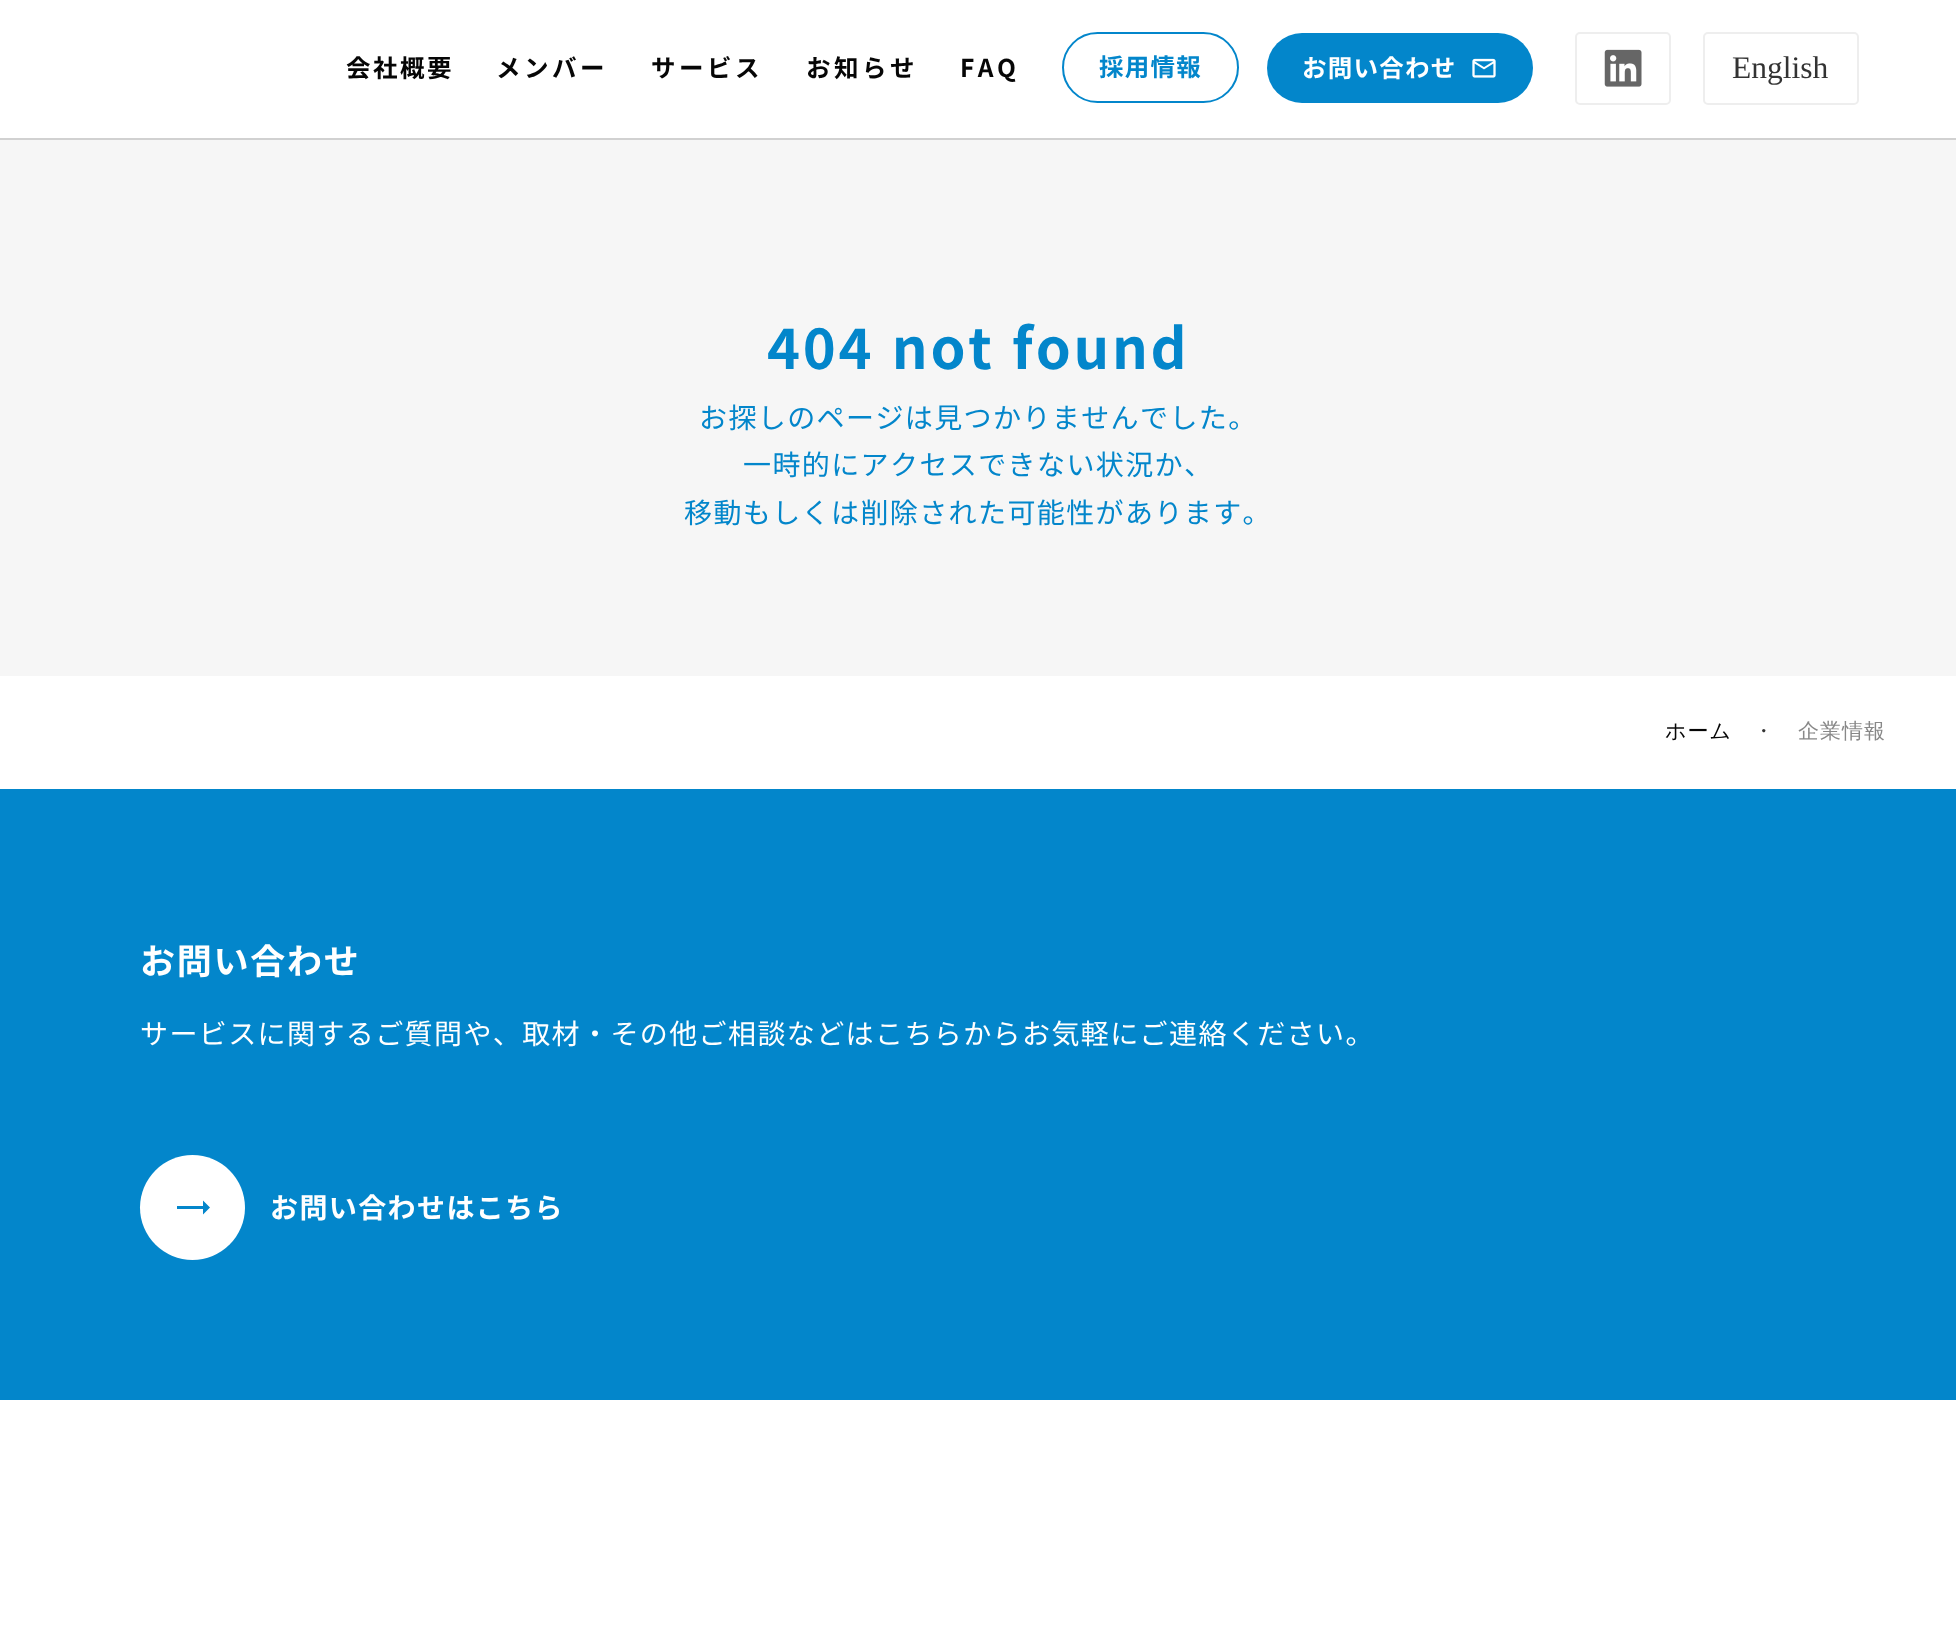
<!DOCTYPE html>
<meta charset="utf-8">
<style>body { margin: 0 } canvas { display: block }</style>
<canvas id="canvas" width="1956" height="1641"></canvas>
<img id="img1" src="img_01.png" hidden>
<img id="img2" src="img_02.png" hidden>
<script>
window.onload = function () {
	const canvas = document.getElementById("canvas");
	const ctx = canvas.getContext("2d");
	ctx.miterLimit = 4;
	ctx.fontKerning = "none";
	function txt(s, x, y) {
		ctx.fillText(s, x, y);
	}
	function fill(x, y, w, h) {
		ctx.fillRect(x, y, w, h);
	}
	function round(x, y, w, h, r) {
		ctx.beginPath();
		ctx.roundRect(x, y, w, h, r);
		ctx.fill();
	}
	function img(id, x, y, w, h) {
		ctx.drawImage(document.getElementById(id), x, y, w, h);
	}

	ctx.fillStyle = "#F6F6F6";
	fill(0, 0, 1956, 1641);
	ctx.fillStyle = "#FFFFFF";
	fill(0, 0, 1956, 138);
	ctx.fillStyle = "#D1D1D1";
	fill(0, 138, 1956, 2);
	ctx.beginPath();
	ctx.roundRect(1063, 33, 175, 69, 34.5);
	ctx.strokeStyle = "#0386CB";
	ctx.lineWidth = 2;
	ctx.stroke();
	ctx.fillStyle = "#0386CB";
	round(1267, 33, 266, 70, 35);
	img("img1", 1472, 58, 24, 20);
	ctx.beginPath();
	ctx.roundRect(1576, 33, 94, 71, 4);
	ctx.strokeStyle = "#EEEEEE";
	ctx.stroke();
	img("img2", 1604, 49, 38, 38);
	ctx.beginPath();
	ctx.roundRect(1704, 33, 154, 71, 4);
	ctx.stroke();
	ctx.fillStyle = "#FFFFFF";
	fill(0, 676, 1956, 113);
	ctx.fillStyle = "#0386CB";
	fill(0, 789, 1956, 611);
	ctx.fillStyle = "#FFFFFF";
	ctx.beginPath();
	ctx.arc(192.5, 1207.5, 52.5, 0, Math.PI * 2);
	ctx.fill();
	ctx.fillStyle = "#0386CB";
	ctx.beginPath();
	ctx.moveTo(210, 1207.5);
	ctx.lineTo(203, 1214.5);
	ctx.lineTo(203, 1209);
	ctx.lineTo(177, 1209);
	ctx.lineTo(177, 1206);
	ctx.lineTo(203, 1206);
	ctx.lineTo(203, 1200.5);
	ctx.closePath();
	ctx.fill();
	ctx.fillStyle = "#FFFFFF";
	fill(0, 1400, 1956, 241);
	ctx.letterSpacing = "2.5px";
	ctx.font = "bold 24.5px Noto Sans JP";
	ctx.fillStyle = "#060606";
	txt("会社概要", 346, 77);
	ctx.letterSpacing = "3.5px";
	txt("メンバー", 496, 77);
	txt("サービス", 651, 77);
	txt("お知らせ", 806, 77);
	txt("FAQ", 960, 77);
	ctx.letterSpacing = "1.25px";
	ctx.fillStyle = "#0386CB";
	txt("採用情報", 1099, 76);
	ctx.fillStyle = "#FFFFFF";
	txt("お問い合わせ", 1302, 77);
	ctx.letterSpacing = "0px";
	ctx.font = "31.5px Liberation Serif";
	ctx.fillStyle = "#333333";
	txt("English", 1732, 78);
	ctx.letterSpacing = "2.75px";
	ctx.wordSpacing = "2px";
	ctx.font = "bold 56px Noto Sans JP";
	ctx.fillStyle = "#0386CB";
	txt("404 not found", 767, 369);
	ctx.letterSpacing = "1.4px";
	ctx.wordSpacing = "0px";
	ctx.font = "28px Noto Sans JP";
	txt("お探しのページは見つかりませんでした。", 699, 428);
	txt("一時的にアクセスできない状況か、", 743, 475);
	txt("移動もしくは削除された可能性があります。", 684, 523);
	ctx.letterSpacing = "1px";
	ctx.font = "500 21px WenQuanYi Zen Hei";
	ctx.fillStyle = "#060606";
	txt("ホーム", 1665, 738);
	ctx.letterSpacing = "3px";
	ctx.fillStyle = "#333333";
	txt("・", 1753, 738);
	ctx.letterSpacing = "1px";
	ctx.fillStyle = "#888888";
	txt("企業情報", 1798, 738);
	ctx.letterSpacing = "1.75px";
	ctx.font = "bold 35px Noto Sans JP";
	ctx.fillStyle = "#FFFFFF";
	txt("お問い合わせ", 140, 974);
	ctx.letterSpacing = "1.4px";
	ctx.font = "28px Noto Sans JP";
	txt("サービスに関するご質問や、取材・その他ご相談などはこちらからお気軽にご連絡ください。", 140, 1044);
	ctx.font = "bold 28px Noto Sans JP";
	txt("お問い合わせはこちら", 270, 1218);
};
</script>
